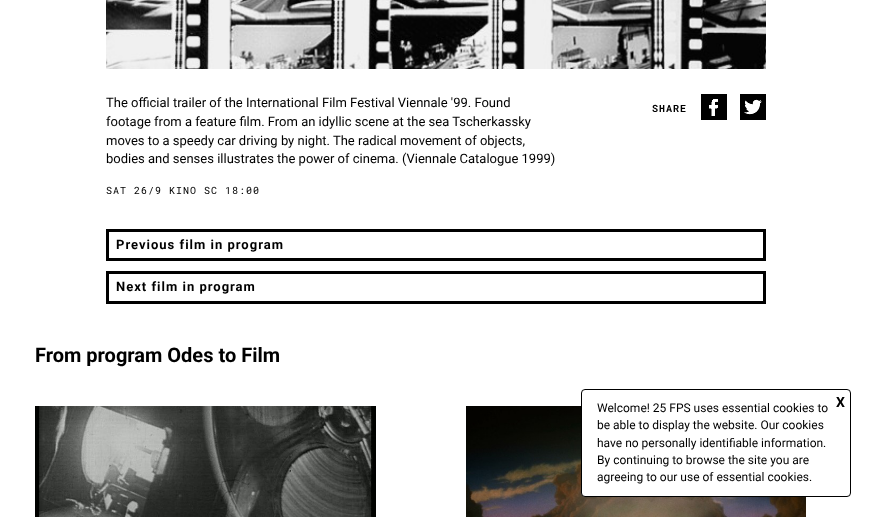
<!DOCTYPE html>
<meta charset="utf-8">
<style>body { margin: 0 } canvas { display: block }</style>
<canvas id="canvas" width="871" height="517"></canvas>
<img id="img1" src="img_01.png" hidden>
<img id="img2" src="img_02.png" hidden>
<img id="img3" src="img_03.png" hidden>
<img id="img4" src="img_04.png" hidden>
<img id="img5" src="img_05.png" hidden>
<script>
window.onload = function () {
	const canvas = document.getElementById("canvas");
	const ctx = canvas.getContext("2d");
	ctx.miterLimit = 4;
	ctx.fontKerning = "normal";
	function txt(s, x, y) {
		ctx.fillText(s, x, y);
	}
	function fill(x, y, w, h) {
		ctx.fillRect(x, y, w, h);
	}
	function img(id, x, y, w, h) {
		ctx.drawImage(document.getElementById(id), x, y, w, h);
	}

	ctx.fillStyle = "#FFFFFF";
	fill(0, 0, 871, 517);
	img("img1", 106, 0, 660, 69);
	img("img2", 701, 94, 26, 26);
	img("img3", 740, 94, 26, 26);
	ctx.strokeStyle = "#000000";
	ctx.lineWidth = 3;
	ctx.strokeRect(107.5, 230.5, 657, 29);
	ctx.strokeRect(107.5, 272.5, 657, 30);
	img("img4", 35, 406, 341, 111);
	img("img5", 466, 406, 340, 111);
	ctx.beginPath();
	ctx.roundRect(581.5, 389.5, 269, 107, 3.5);
	ctx.fill();
	ctx.lineWidth = 1;
	ctx.stroke();
	ctx.font = "13px Roboto";
	ctx.fillStyle = "#000000";
	txt("The official trailer of the International Film Festival Viennale '99. Found", 106, 107);
	txt("footage from a feature film. From an idyllic scene at the sea Tscherkassky", 106, 126);
	txt("moves to a speedy car driving by night. The radical movement of objects,", 106, 145);
	txt("bodies and senses illustrates the power of cinema. (Viennale Catalogue 1999)", 106, 163);
	ctx.letterSpacing = "1px";
	ctx.font = "10px Roboto Mono";
	txt("SAT 26/9 KINO SC 18:00", 106, 194);
	ctx.font = "bold 10px Roboto Mono";
	txt("SHARE", 652, 112);
	ctx.font = "bold 13px Roboto";
	txt("Previous film in program", 116, 249);
	txt("Next film in program", 116, 291);
	ctx.letterSpacing = "0px";
	ctx.font = "bold 20px Roboto";
	txt("From program Odes to Film", 35, 362);
	ctx.font = "bold 14px Roboto";
	txt("X", 836, 407);
	ctx.font = "12px Roboto";
	txt("Welcome! 25 FPS uses essential cookies to", 597, 412);
	txt("be able to display the website. Our cookies", 597, 429);
	txt("have no personally identifiable information.", 597, 447);
	txt("By continuing to browse the site you are", 597, 464);
	txt("agreeing to our use of essential cookies.", 597, 481);
};
</script>
